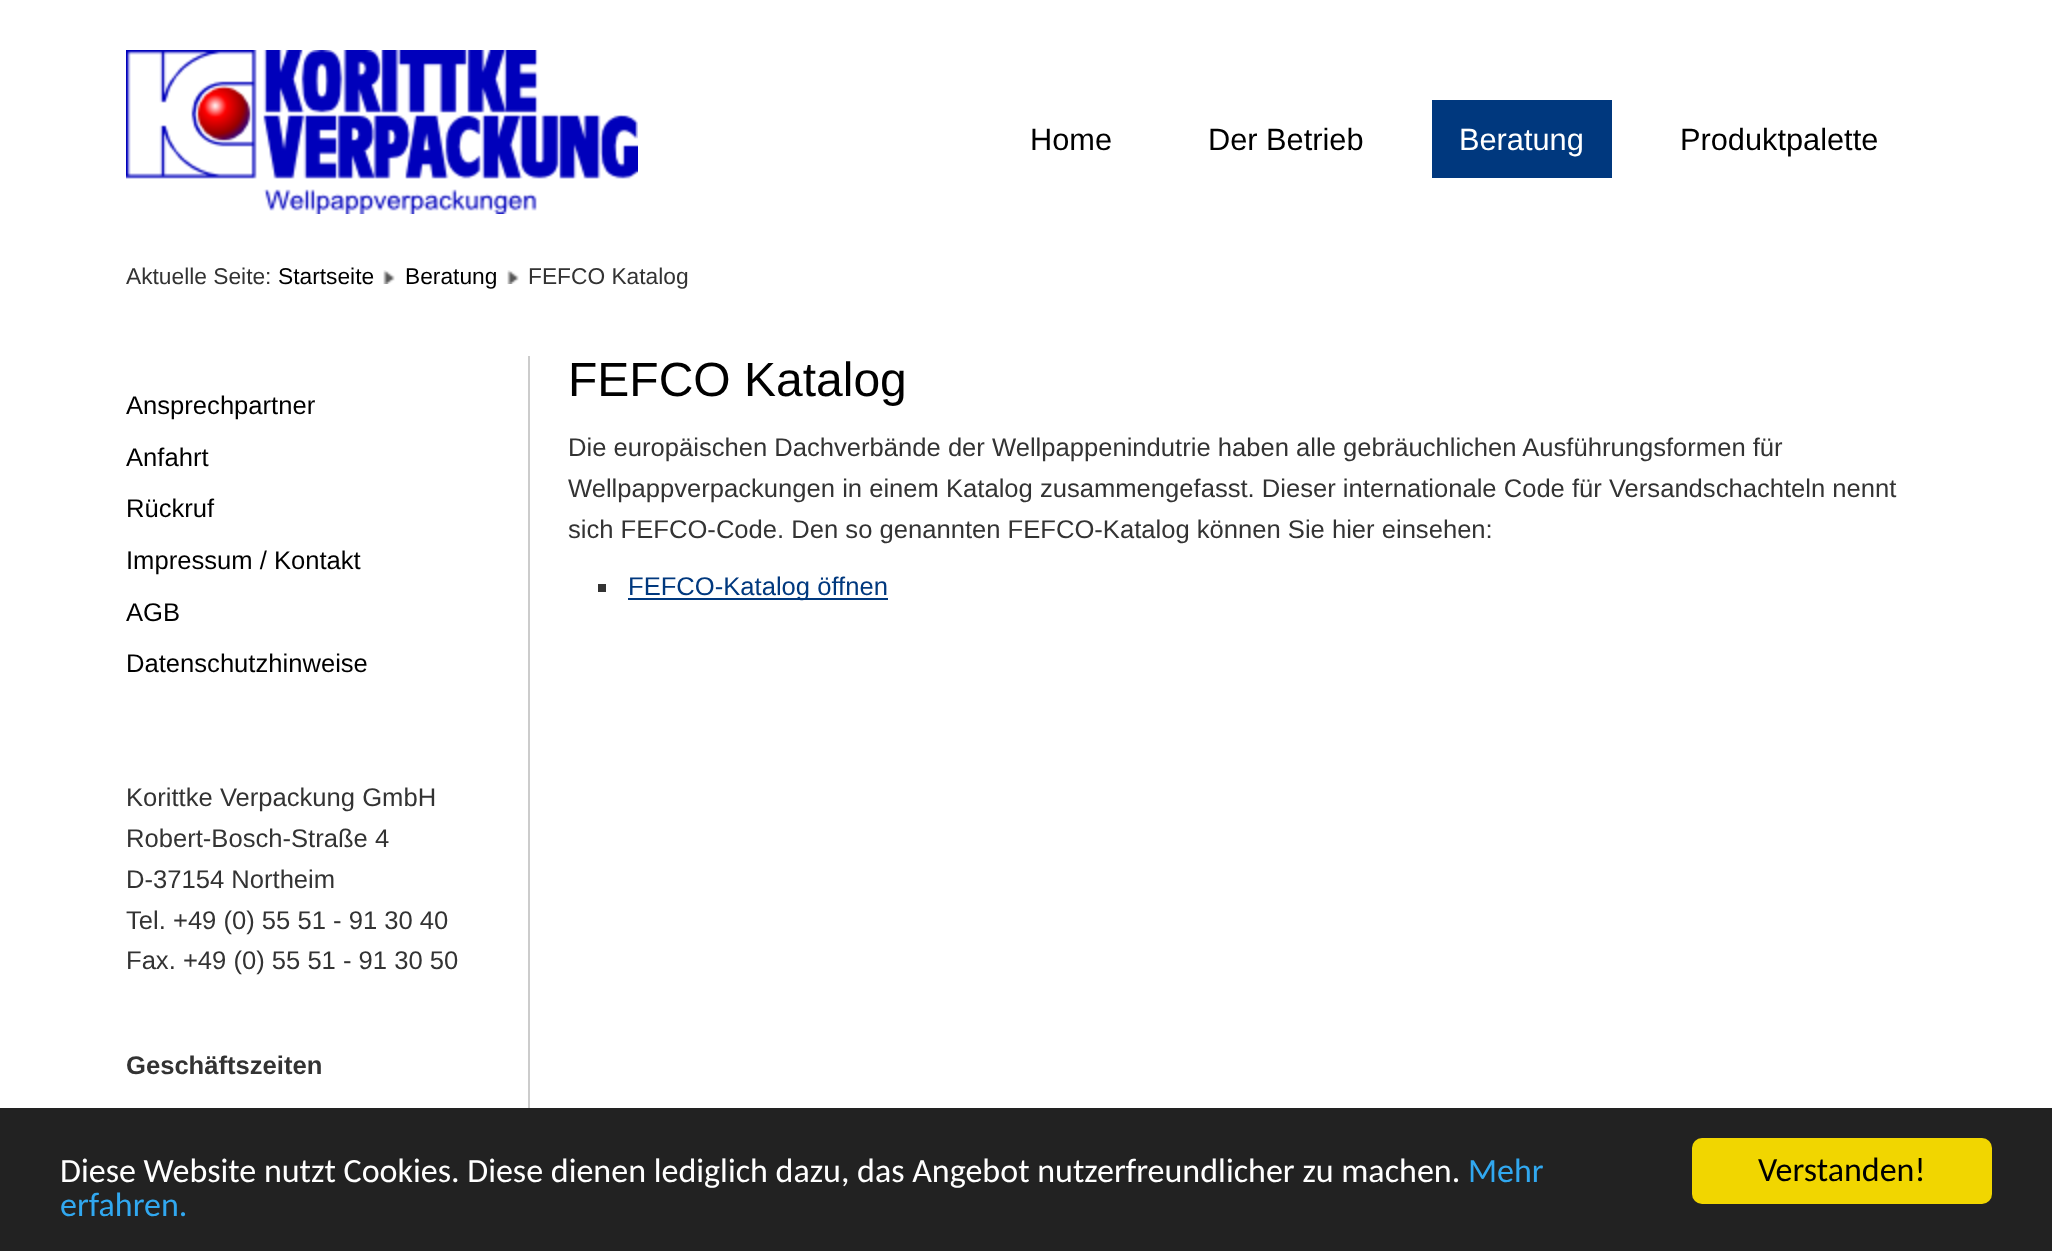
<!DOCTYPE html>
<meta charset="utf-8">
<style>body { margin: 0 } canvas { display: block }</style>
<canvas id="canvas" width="2052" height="1251"></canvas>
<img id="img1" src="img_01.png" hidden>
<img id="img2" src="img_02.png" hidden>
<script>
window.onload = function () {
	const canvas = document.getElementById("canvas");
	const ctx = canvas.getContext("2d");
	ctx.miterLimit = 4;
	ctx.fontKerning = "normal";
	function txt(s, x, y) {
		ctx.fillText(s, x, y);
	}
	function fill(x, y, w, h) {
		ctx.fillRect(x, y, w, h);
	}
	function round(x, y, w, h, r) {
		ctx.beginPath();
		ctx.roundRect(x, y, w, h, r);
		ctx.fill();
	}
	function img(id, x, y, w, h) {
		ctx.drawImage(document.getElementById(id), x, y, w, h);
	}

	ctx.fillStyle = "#FFFFFF";
	fill(0, 0, 2052, 1251);
	img("img1", 126, 50, 512, 164);
	ctx.fillStyle = "#00387E";
	fill(1432, 100, 180, 78);
	img("img2", 383, 270, 12, 14);
	img("img2", 507, 270, 12, 14);
	ctx.fillStyle = "#CCCCCC";
	fill(528, 356, 2, 752);
	ctx.fillStyle = "#333333";
	fill(598, 584, 8, 8);
	ctx.fillStyle = "#00387E";
	fill(628, 598, 260, 2);
	ctx.fillStyle = "#222222";
	fill(0, 1108, 2052, 143);
	ctx.fillStyle = "#F1D600";
	round(1692, 1138, 300, 66, 10);
	ctx.font = "30.75px Liberation Sans";
	ctx.fillStyle = "#000000";
	txt("Home", 1030, 150);
	txt("Der Betrieb", 1208, 150);
	ctx.fillStyle = "#FFFFFF";
	txt("Beratung", 1459, 150);
	ctx.fillStyle = "#000000";
	txt("Produktpalette", 1680, 150);
	ctx.font = "22.75px Liberation Sans";
	ctx.fillStyle = "#333333";
	txt("Aktuelle Seite:", 126, 284);
	ctx.fillStyle = "#000000";
	txt("Startseite", 278, 284);
	txt("Beratung", 405, 284);
	ctx.fillStyle = "#333333";
	txt("FEFCO Katalog", 528, 284);
	ctx.font = "25.6px Liberation Sans";
	ctx.fillStyle = "#000000";
	txt("Ansprechpartner", 126, 414);
	txt("Anfahrt", 126, 466);
	txt("Rückruf", 126, 517);
	txt("Impressum / Kontakt", 126, 569);
	txt("AGB", 126, 621);
	txt("Datenschutzhinweise", 126, 672);
	ctx.fillStyle = "#333333";
	txt("Korittke Verpackung GmbH", 126, 806);
	txt("Robert-Bosch-Straße 4", 126, 847);
	txt("D-37154 Northeim", 126, 888);
	txt("Tel. +49 (0) 55 51 - 91 30 40", 126, 929);
	txt("Fax. +49 (0) 55 51 - 91 30 50", 126, 969);
	ctx.font = "bold 25.6px Liberation Sans";
	txt("Geschäftszeiten", 126, 1074);
	ctx.font = "48px Liberation Sans";
	ctx.fillStyle = "#000000";
	txt("FEFCO Katalog", 568, 396);
	ctx.font = "25.6px Liberation Sans";
	ctx.fillStyle = "#333333";
	txt("Die europäischen Dachverbände der Wellpappenindutrie haben alle gebräuchlichen Ausführungsformen für", 568, 456);
	txt("Wellpappverpackungen in einem Katalog zusammengefasst. Dieser internationale Code für Versandschachteln nennt", 568, 497);
	txt("sich FEFCO-Code. Den so genannten FEFCO-Katalog können Sie hier einsehen:", 568, 538);
	ctx.fillStyle = "#00387E";
	txt("FEFCO-Katalog öffnen", 628, 595);
	ctx.font = "34px Carlito";
	ctx.fillStyle = "#FFFFFF";
	txt("Diese Website nutzt Cookies. Diese dienen lediglich dazu, das Angebot nutzerfreundlicher zu machen.", 60, 1182);
	ctx.fillStyle = "#31A8F0";
	txt("Mehr", 1468, 1182);
	txt("erfahren.", 60, 1216);
	ctx.fillStyle = "#000000";
	txt("Verstanden!", 1758, 1181);
};
</script>
